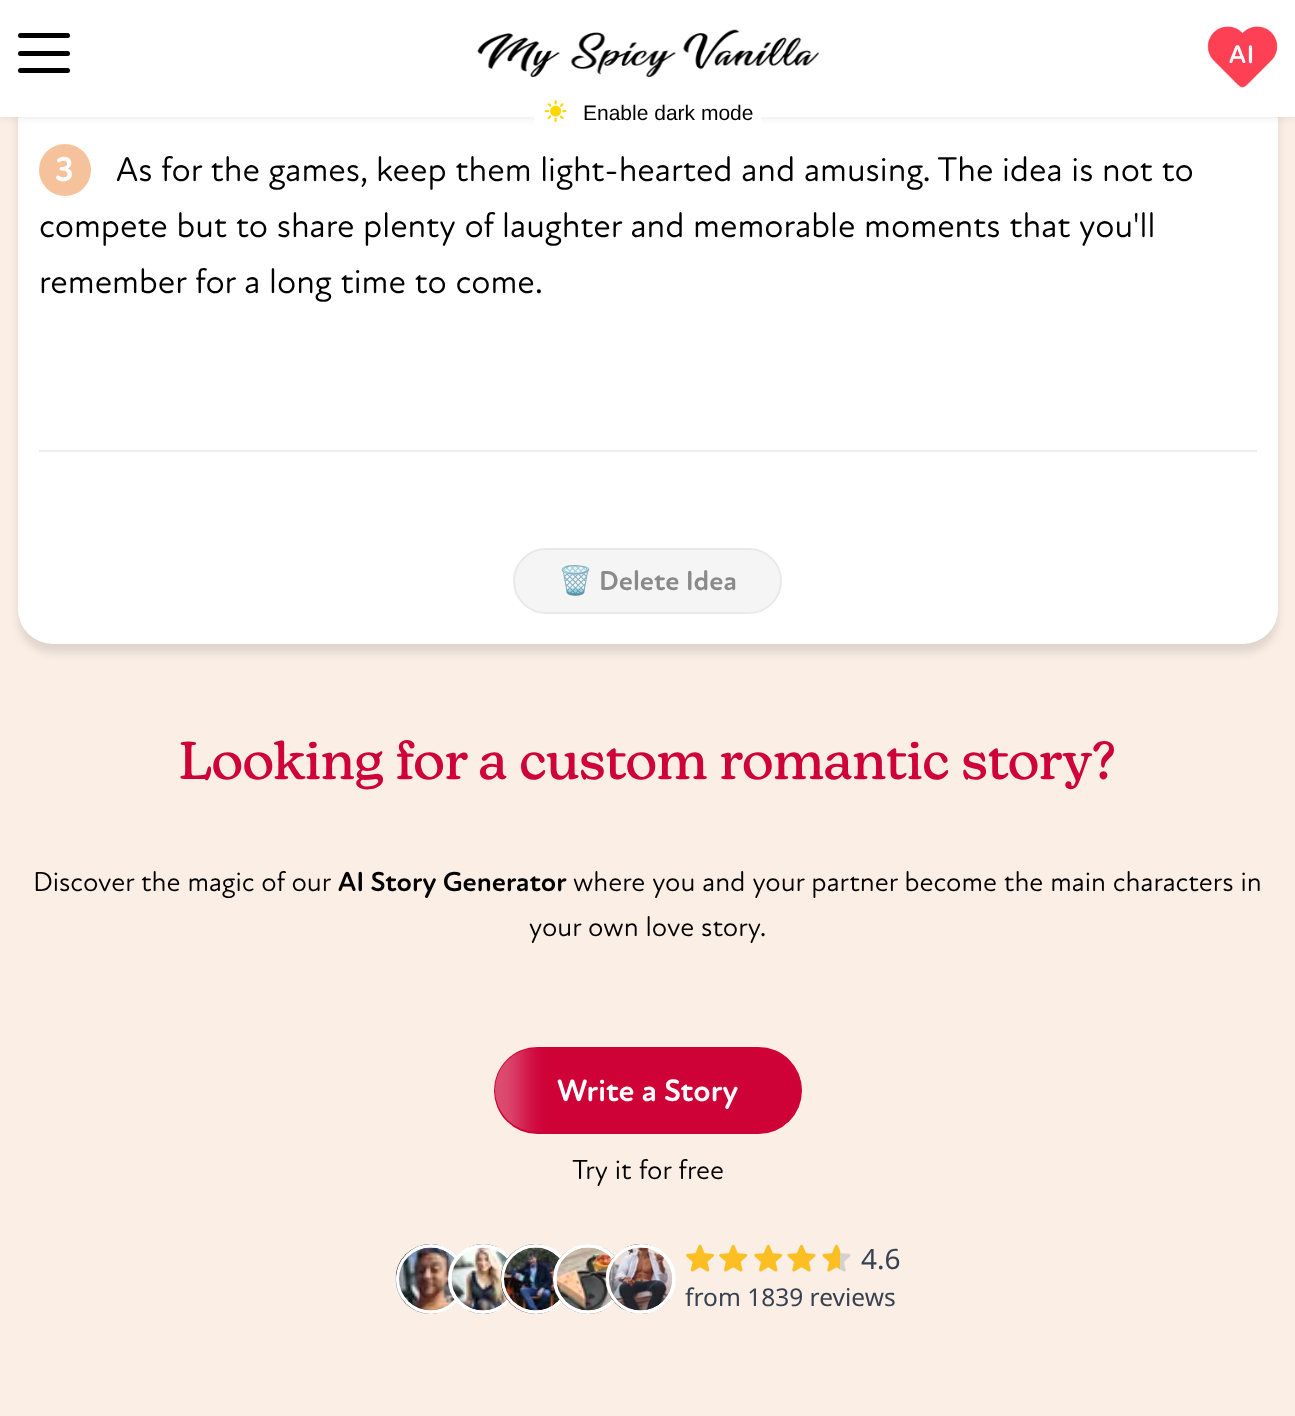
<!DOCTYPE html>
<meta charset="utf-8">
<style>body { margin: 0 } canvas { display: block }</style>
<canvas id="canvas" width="1295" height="1416"></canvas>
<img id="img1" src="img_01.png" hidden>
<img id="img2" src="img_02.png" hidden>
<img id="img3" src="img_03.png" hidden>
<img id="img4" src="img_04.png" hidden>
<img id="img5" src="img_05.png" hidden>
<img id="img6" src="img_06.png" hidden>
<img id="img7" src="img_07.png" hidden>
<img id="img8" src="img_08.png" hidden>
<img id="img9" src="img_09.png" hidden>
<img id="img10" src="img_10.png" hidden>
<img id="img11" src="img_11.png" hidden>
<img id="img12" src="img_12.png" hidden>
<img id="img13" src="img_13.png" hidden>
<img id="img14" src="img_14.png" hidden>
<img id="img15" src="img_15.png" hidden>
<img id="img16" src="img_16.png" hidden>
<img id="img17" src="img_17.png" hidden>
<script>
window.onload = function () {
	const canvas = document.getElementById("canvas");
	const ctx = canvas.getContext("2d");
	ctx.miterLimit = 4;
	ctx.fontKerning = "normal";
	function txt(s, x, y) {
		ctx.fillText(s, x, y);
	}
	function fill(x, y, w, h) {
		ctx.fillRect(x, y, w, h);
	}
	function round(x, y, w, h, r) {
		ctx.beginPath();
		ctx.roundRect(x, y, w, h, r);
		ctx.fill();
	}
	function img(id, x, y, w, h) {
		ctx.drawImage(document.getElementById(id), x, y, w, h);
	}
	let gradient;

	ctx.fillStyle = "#FAEEE5";
	fill(0, 0, 1295, 1416);
	ctx.fillStyle = "rgba(0, 0, 0, 0.1)";
	ctx.filter = "blur(4.5px)";
	ctx.beginPath();
	ctx.roundRect(18, -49, 1260, 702, 35);
	ctx.fill();
	ctx.filter = "none";
	ctx.fillStyle = "#FFFFFF";
	round(18, -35, 1260, 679, 35);
	ctx.fillStyle = "rgba(0, 0, 0, 0.1)";
	ctx.filter = "blur(4.5px)";
	ctx.beginPath();
	ctx.rect(0, 0, 1295, 117);
	ctx.fill();
	ctx.filter = "none";
	ctx.fillStyle = "#FFFFFF";
	fill(0, 0, 1295, 117);
	ctx.fillStyle = "#000000";
	round(18, 33, 52, 5, 2.5);
	round(18, 51, 52, 5, 2.5);
	round(18, 68, 52, 5, 2.5);
	img("img1", 1207, 26, 71, 62);
	img("img2", 477, 29, 342, 48);
	ctx.fillStyle = "#FFFFFF";
	round(534, 98, 227, 32, 9);
	img("img3", 544, 100, 23, 22);
	ctx.fillStyle = "#F5C29C";
	ctx.beginPath();
	ctx.arc(65, 170, 26, 0, Math.PI * 2);
	ctx.fill();
	ctx.fillStyle = "#EEEEEE";
	fill(39, 450, 1218, 2);
	ctx.fillStyle = "#F5F5F5";
	ctx.beginPath();
	ctx.roundRect(514, 549, 267, 64, 32);
	ctx.fill();
	ctx.strokeStyle = "#E9E9E9";
	ctx.lineWidth = 2;
	ctx.stroke();
	ctx.save();
	ctx.beginPath();
	ctx.roundRect(494, 1047, 308, 87, 43.5);
	ctx.clip();
	gradient = ctx.createLinearGradient(125, 831, 732, 1182);
	gradient.addColorStop(0, "#CE0237");
	gradient.addColorStop(0.25, "#B44092");
	gradient.addColorStop(0.5, "#6A5FC1");
	gradient.addColorStop(0.55, "#CE0237");
	gradient.addColorStop(1, "#CE0237");
	ctx.fillStyle = gradient;
	fill(528, 1047, 240, 1);
	gradient = ctx.createLinearGradient(125, 915, 732, 1266);
	gradient.addColorStop(0, "#CE0237");
	gradient.addColorStop(0.25, "#B44092");
	gradient.addColorStop(0.5, "#6A5FC1");
	gradient.addColorStop(0.55, "#CE0237");
	gradient.addColorStop(1, "#CE0237");
	ctx.fillStyle = gradient;
	fill(494, 1048, 308, 84);
	gradient = ctx.createLinearGradient(125, 999, 732, 1350);
	gradient.addColorStop(0, "#CE0237");
	gradient.addColorStop(0.25, "#B44092");
	gradient.addColorStop(0.5, "#6A5FC1");
	gradient.addColorStop(0.55, "#CE0237");
	gradient.addColorStop(1, "#CE0237");
	ctx.fillStyle = gradient;
	fill(524, 1132, 248, 2);
	ctx.restore();
	ctx.save();
	ctx.beginPath();
	ctx.roundRect(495, 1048, 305, 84, 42);
	ctx.clip();
	ctx.fillStyle = "rgba(255, 255, 255, 0.3)";
	ctx.filter = "blur(13px)";
	ctx.beginPath();
	ctx.rect(469, 1022, 53, 137);
	ctx.fill();
	ctx.filter = "none";
	ctx.restore();
	img("img4", 395, 1244, 62, 70);
	ctx.beginPath();
	ctx.arc(431, 1279, 33, 0, Math.PI * 2);
	ctx.strokeStyle = "#FFFFFF";
	ctx.lineWidth = 4;
	ctx.stroke();
	img("img5", 399, 1247, 56, 64);
	img("img6", 448, 1244, 62, 70);
	ctx.beginPath();
	ctx.arc(483, 1279, 33, 0, Math.PI * 2);
	ctx.stroke();
	img("img7", 451, 1247, 57, 64);
	img("img8", 500, 1244, 62, 70);
	ctx.beginPath();
	ctx.arc(536, 1279, 33, 0, Math.PI * 2);
	ctx.stroke();
	img("img9", 504, 1247, 56, 64);
	img("img10", 553, 1244, 62, 70);
	ctx.beginPath();
	ctx.arc(588, 1279, 33, 0, Math.PI * 2);
	ctx.stroke();
	img("img11", 556, 1247, 56, 64);
	img("img12", 605, 1244, 71, 70);
	ctx.beginPath();
	ctx.arc(641, 1279, 33, 0, Math.PI * 2);
	ctx.stroke();
	img("img13", 609, 1247, 63, 64);
	img("img14", 686, 1244, 28, 28);
	img("img15", 719, 1244, 29, 28);
	img("img15", 754, 1244, 29, 28);
	img("img16", 787, 1244, 29, 28);
	img("img17", 822, 1244, 29, 28);
	ctx.letterSpacing = "1px";
	ctx.font = "bold 26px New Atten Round";
	ctx.fillStyle = "#FFFFFF";
	txt("AI", 1229, 63);
	ctx.letterSpacing = "0px";
	ctx.font = "21px Liberation Sans";
	ctx.fillStyle = "#000000";
	txt("Enable dark mode", 583, 120);
	ctx.font = "bold 35px New Atten Round";
	ctx.fillStyle = "#FFFFFF";
	txt("3", 55, 181);
	ctx.font = "35px New Atten Round";
	ctx.fillStyle = "#000000";
	txt("As for the games, keep them light-hearted and amusing. The idea is not to", 116, 181);
	txt("compete but to share plenty of laughter and memorable moments that you'll", 39, 237);
	txt("remember for a long time to come.", 39, 293);
	ctx.font = "bold 28px Noto Color Emoji";
	ctx.fillStyle = "#8A8A8A";
	txt("🗑️", 558, 590);
	ctx.font = "bold 28px New Atten Round";
	txt("Delete Idea", 599, 590);
	ctx.font = "500 52.5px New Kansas";
	ctx.fillStyle = "#CE0237";
	txt("Looking for a custom romantic story?", 179, 779);
	ctx.font = "28px New Atten Round";
	ctx.fillStyle = "#000000";
	txt("Discover the magic of our", 33, 891);
	ctx.font = "bold 28px New Atten Round";
	txt("AI Story Generator", 338, 891);
	ctx.font = "28px New Atten Round";
	txt("where you and your partner become the main characters in", 573, 891);
	txt("your own love story.", 529, 936);
	ctx.font = "bold 31.5px New Atten Round";
	ctx.fillStyle = "#FFFFFF";
	txt("Write a Story", 557, 1101);
	ctx.font = "28px New Atten Round";
	ctx.fillStyle = "#000000";
	txt("Try it for free", 572, 1179);
	ctx.font = "28px Noto Sans";
	ctx.fillStyle = "#374151";
	txt("4.6", 861, 1269);
	ctx.font = "24.5px Noto Sans";
	txt("from 1839 reviews", 685, 1306);
};
</script>
